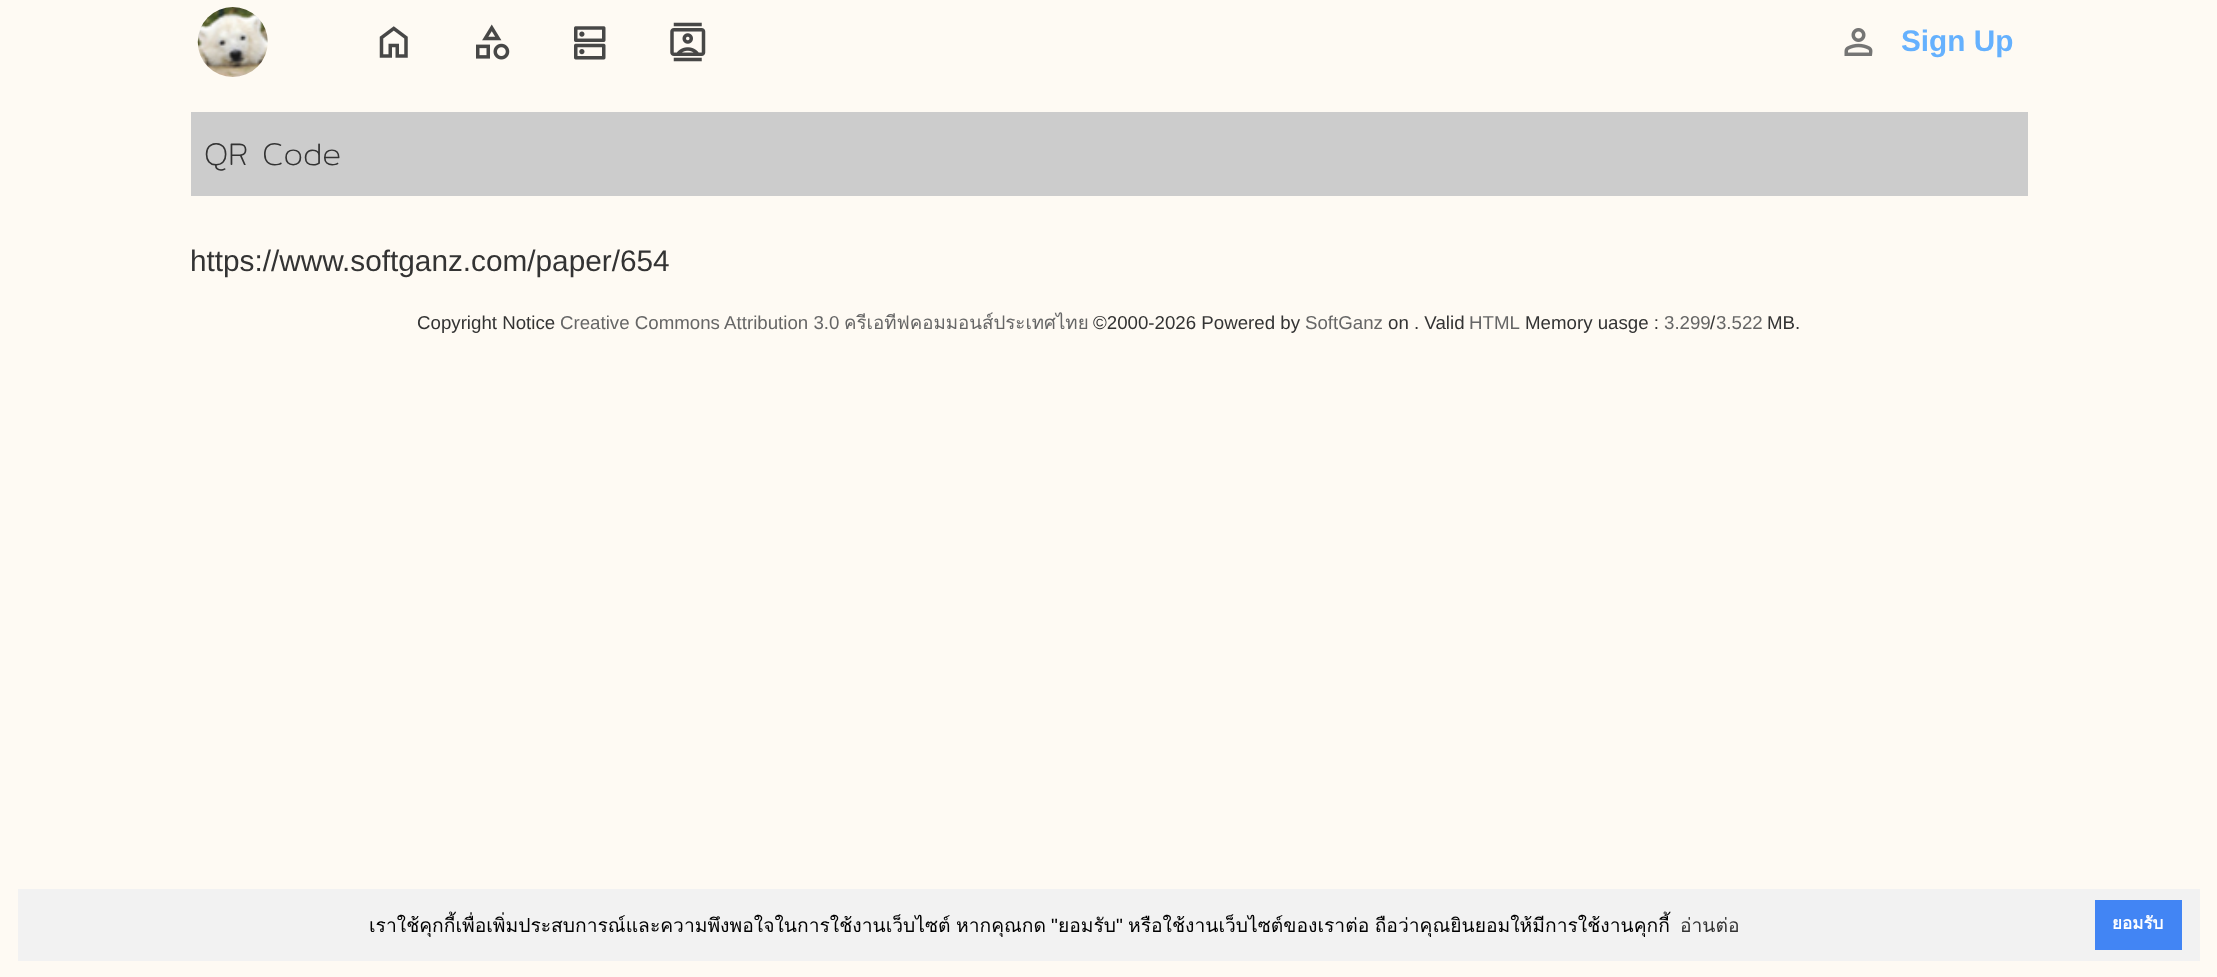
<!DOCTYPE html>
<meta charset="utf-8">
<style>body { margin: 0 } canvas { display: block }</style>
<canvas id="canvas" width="2217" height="977"></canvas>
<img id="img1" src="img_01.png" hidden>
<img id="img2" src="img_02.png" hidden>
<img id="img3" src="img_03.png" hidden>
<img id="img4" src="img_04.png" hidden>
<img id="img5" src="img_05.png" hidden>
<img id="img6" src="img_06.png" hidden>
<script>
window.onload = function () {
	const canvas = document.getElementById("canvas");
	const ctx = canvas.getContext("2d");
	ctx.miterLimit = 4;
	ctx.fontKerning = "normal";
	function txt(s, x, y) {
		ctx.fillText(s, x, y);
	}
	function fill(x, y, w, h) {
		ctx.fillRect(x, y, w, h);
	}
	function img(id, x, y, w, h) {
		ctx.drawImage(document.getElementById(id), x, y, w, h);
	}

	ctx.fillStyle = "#FEFAF3";
	fill(0, 0, 2217, 977);
	img("img1", 197, 7, 71, 70);
	img("img2", 379, 26, 29, 32);
	img("img3", 476, 24, 34, 36);
	img("img4", 574, 26, 32, 34);
	img("img5", 670, 22, 36, 40);
	img("img6", 1844, 28, 29, 28);
	ctx.fillStyle = "#CCCCCC";
	fill(191, 112, 1837, 84);
	ctx.fillStyle = "#F2F2F2";
	fill(18, 889, 2182, 72);
	ctx.fillStyle = "#4285F4";
	fill(2095, 900, 87, 50);
	ctx.font = "bold 29.75px Liberation Sans";
	ctx.fillStyle = "#65B1FE";
	txt("Sign Up", 1901, 51);
	ctx.font = "200 31.5px Mitr";
	ctx.fillStyle = "#333333";
	txt("QR Code", 204, 165);
	ctx.font = "29.75px Liberation Sans";
	txt("https://www.softganz.com/paper/654", 190, 271);
	ctx.font = "18.7px Liberation Sans";
	txt("Copyright Notice", 417, 329);
	ctx.fillStyle = "#666666";
	txt("Creative Commons Attribution 3.0", 560, 329);
	ctx.font = "18.7px Loma";
	txt("ครีเอทีฟคอมมอนส์ประเทศไทย", 844, 329);
	ctx.font = "18.7px Liberation Sans";
	ctx.fillStyle = "#333333";
	txt("©2000-2026 Powered by", 1093, 329);
	ctx.fillStyle = "#666666";
	txt("SoftGanz", 1305, 329);
	ctx.fillStyle = "#333333";
	txt("on . Valid", 1388, 329);
	ctx.fillStyle = "#666666";
	txt("3.299 3.522", 1664, 329);
	txt("HTML", 1469, 329);
	ctx.fillStyle = "#333333";
	txt("Memory uasge :", 1525, 329);
	txt("/", 1710, 329);
	txt("MB.", 1767, 329);
	ctx.wordSpacing = "-1px";
	ctx.font = "19.25px Loma";
	ctx.fillStyle = "#000000";
	txt("เราใช้คุกกี้เพื่อเพิ่มประสบการณ์และความพึงพอใจในการใช้งานเว็บไซต์ หากคุณกด", 369, 932);
	ctx.wordSpacing = "0px";
	ctx.font = "19.25px Liberation Sans";
	txt("\"", 1051, 932);
	ctx.font = "19.25px Loma";
	txt("ยอมรับ", 1058, 932);
	ctx.font = "19.25px Liberation Sans";
	txt("\"", 1116, 932);
	ctx.wordSpacing = "-1px";
	ctx.font = "19.25px Loma";
	txt("หรือใช้งานเว็บไซต์ของเราต่อ ถือว่าคุณยินยอมให้มีการใช้งานคุกกี้", 1128, 932);
	ctx.wordSpacing = "0px";
	ctx.fillStyle = "#333333";
	txt("อ่านต่อ", 1680, 932);
	ctx.font = "bold 17px Loma";
	ctx.fillStyle = "#FFFFFF";
	txt("ยอมรับ", 2112, 929);
};
</script>
